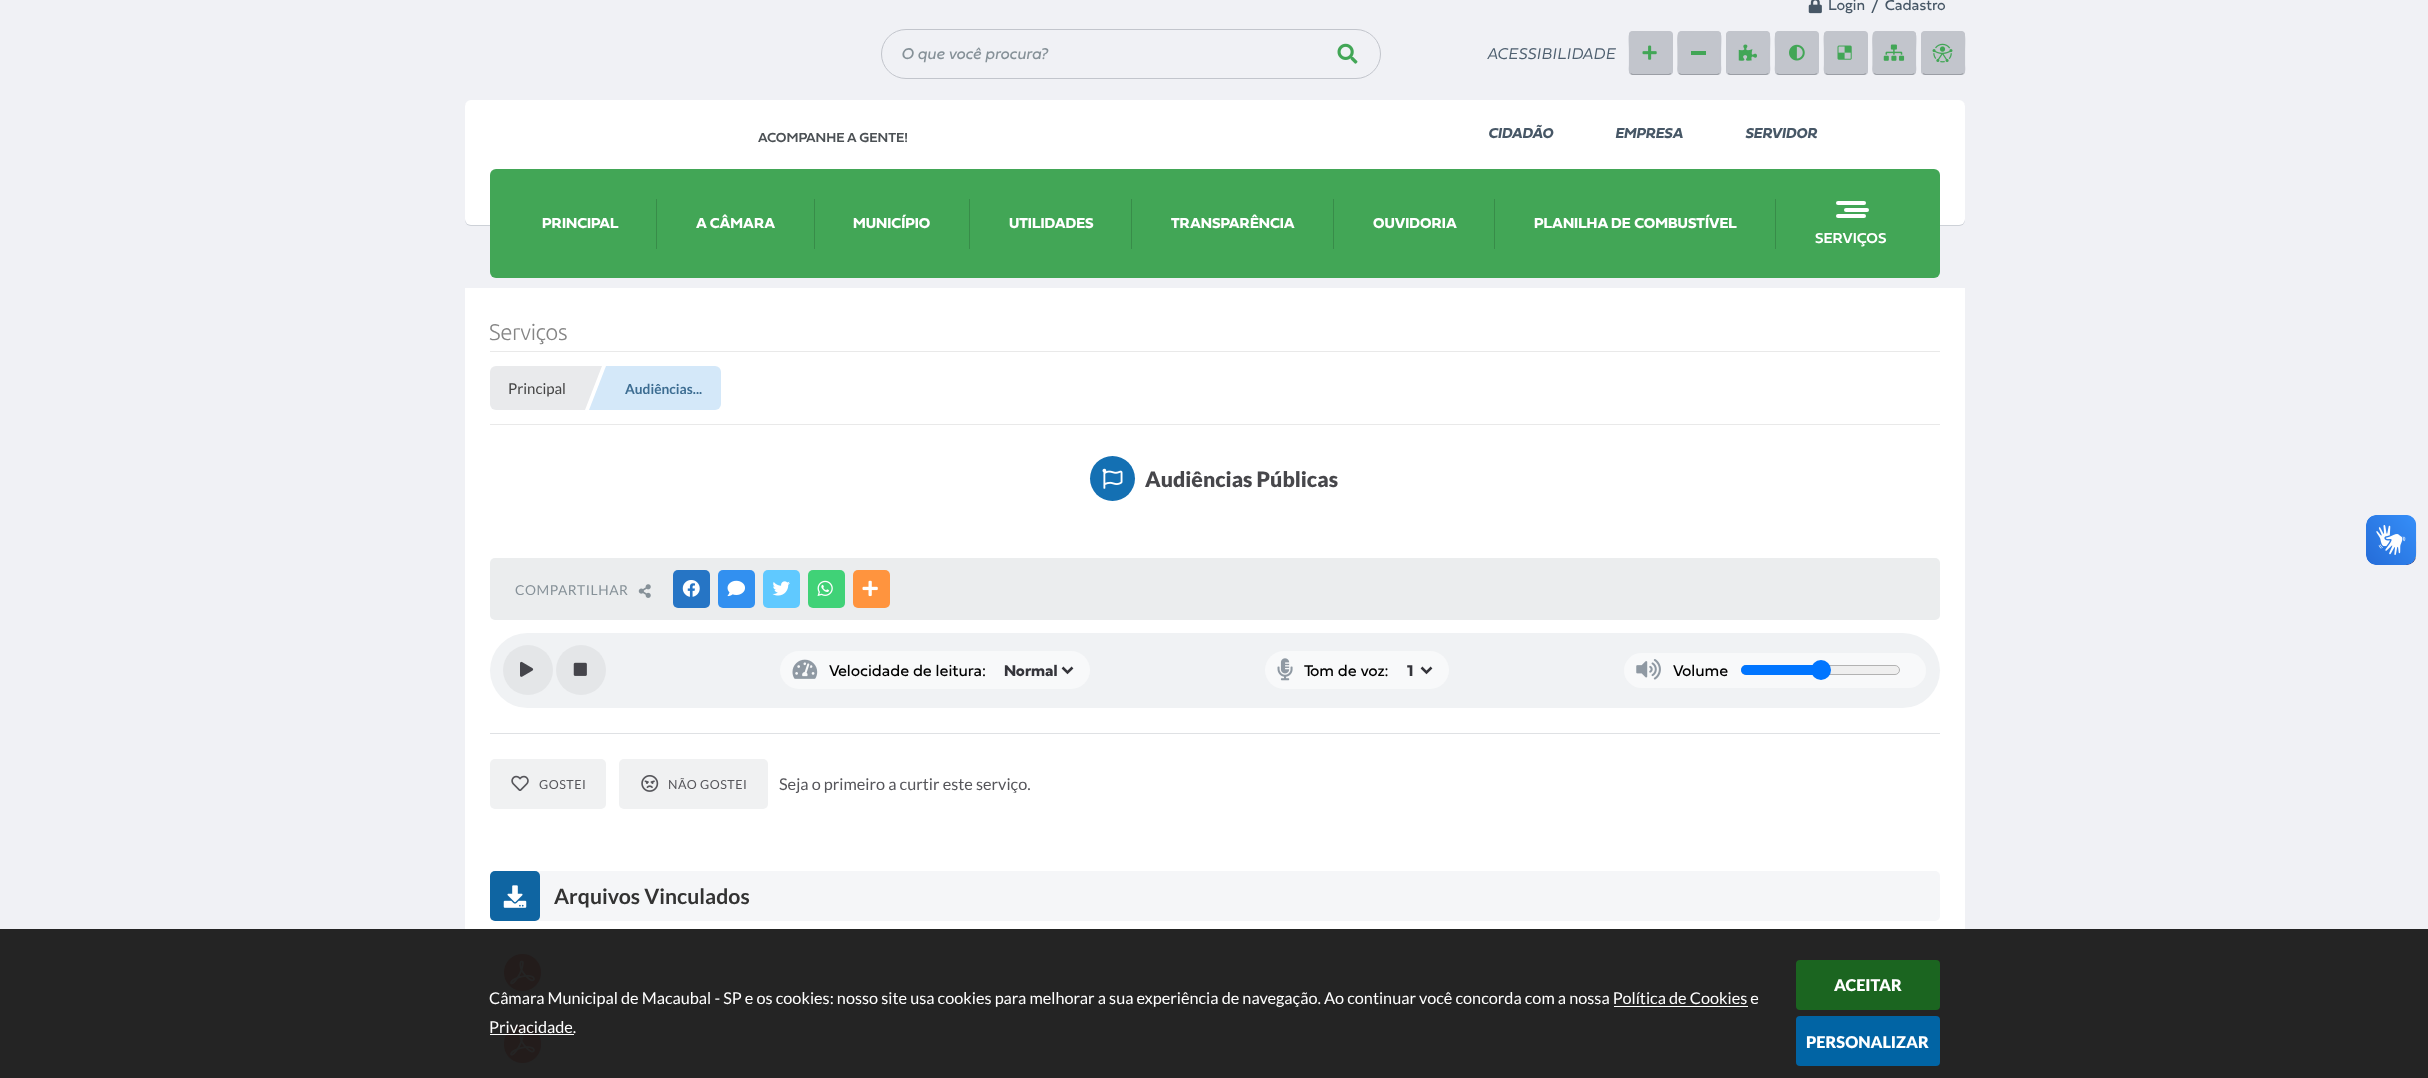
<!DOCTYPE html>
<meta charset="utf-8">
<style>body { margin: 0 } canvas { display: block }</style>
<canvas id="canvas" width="2428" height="1078"></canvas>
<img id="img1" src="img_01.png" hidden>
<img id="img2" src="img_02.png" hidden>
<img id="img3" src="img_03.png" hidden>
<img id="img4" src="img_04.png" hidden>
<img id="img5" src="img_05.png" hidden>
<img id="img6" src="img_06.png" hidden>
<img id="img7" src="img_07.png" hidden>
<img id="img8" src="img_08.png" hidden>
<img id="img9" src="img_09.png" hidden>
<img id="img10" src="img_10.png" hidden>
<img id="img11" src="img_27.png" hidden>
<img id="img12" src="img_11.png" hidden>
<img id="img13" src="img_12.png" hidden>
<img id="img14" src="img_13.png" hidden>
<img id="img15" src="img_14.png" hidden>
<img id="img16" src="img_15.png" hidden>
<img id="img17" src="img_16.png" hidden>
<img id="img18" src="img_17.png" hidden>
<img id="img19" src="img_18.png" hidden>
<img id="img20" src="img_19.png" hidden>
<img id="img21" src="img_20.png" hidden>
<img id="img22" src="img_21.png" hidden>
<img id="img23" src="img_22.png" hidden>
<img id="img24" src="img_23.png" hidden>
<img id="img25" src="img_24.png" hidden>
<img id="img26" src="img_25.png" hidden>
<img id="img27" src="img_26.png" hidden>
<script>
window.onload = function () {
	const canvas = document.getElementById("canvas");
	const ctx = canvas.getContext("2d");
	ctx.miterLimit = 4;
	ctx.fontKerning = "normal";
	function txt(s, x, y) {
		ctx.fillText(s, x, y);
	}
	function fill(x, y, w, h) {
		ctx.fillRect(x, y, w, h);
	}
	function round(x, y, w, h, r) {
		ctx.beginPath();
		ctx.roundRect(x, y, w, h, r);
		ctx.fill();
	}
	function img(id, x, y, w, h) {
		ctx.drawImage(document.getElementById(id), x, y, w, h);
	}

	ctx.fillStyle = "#F0F1F5";
	fill(0, 0, 2428, 1078);
	ctx.fillStyle = "#242424";
	fill(0, 929, 2428, 149);
	img("img1", 1808, 0, 14, 14);
	ctx.beginPath();
	ctx.roundRect(881.5, 29.5, 499, 49, 24.5);
	ctx.strokeStyle = "#C2C5CC";
	ctx.stroke();
	img("img2", 1337, 43, 21, 21);
	ctx.fillStyle = "#C2C5CC";
	round(1629, 31, 44, 44, 4);
	ctx.beginPath();
	ctx.moveTo(1671, 73.5);
	ctx.lineTo(1669, 74.5);
	ctx.lineTo(1632.5, 74.5);
	ctx.lineTo(1630.5, 73.5);
	ctx.strokeStyle = "rgba(41, 44, 48, 0.25)";
	ctx.lineWidth = 1.2;
	ctx.stroke();
	ctx.beginPath();
	ctx.moveTo(1630.5, 73.5);
	ctx.bezierCurveTo(1628.5, 71.5, 1629.5, 66.5, 1629.5, 65);
	ctx.lineTo(1629.5, 53);
	ctx.bezierCurveTo(1629.5, 27, 1624.5, 32, 1650.5, 32);
	ctx.bezierCurveTo(1676.5, 32, 1672, 27, 1672, 53);
	ctx.lineTo(1672, 65);
	ctx.bezierCurveTo(1672, 66.5, 1673, 71.5, 1671, 73.5);
	ctx.strokeStyle = "#C2C5CC";
	ctx.stroke();
	img("img3", 1642, 45, 15, 15);
	round(1678, 31, 43, 44, 4);
	ctx.beginPath();
	ctx.moveTo(1719.5, 73.5);
	ctx.lineTo(1717.5, 74.5);
	ctx.lineTo(1681, 74.5);
	ctx.lineTo(1679, 73.5);
	ctx.strokeStyle = "rgba(41, 44, 48, 0.25)";
	ctx.stroke();
	ctx.beginPath();
	ctx.moveTo(1679, 73.5);
	ctx.bezierCurveTo(1677, 71.5, 1678, 66.5, 1678, 65);
	ctx.lineTo(1678, 53);
	ctx.bezierCurveTo(1678, 27, 1673.5, 32, 1699.5, 32);
	ctx.bezierCurveTo(1725.5, 32, 1720.5, 27, 1720.5, 53);
	ctx.lineTo(1720.5, 65);
	ctx.bezierCurveTo(1720.5, 66.5, 1721.5, 71.5, 1719.5, 73.5);
	ctx.strokeStyle = "#C2C5CC";
	ctx.stroke();
	ctx.fillStyle = "#42A656";
	fill(1691, 51, 15, 4);
	ctx.fillStyle = "#C2C5CC";
	round(1726, 31, 44, 44, 4);
	ctx.beginPath();
	ctx.moveTo(1768.5, 73.5);
	ctx.lineTo(1766, 74.5);
	ctx.lineTo(1730, 74.5);
	ctx.lineTo(1728, 73.5);
	ctx.strokeStyle = "rgba(41, 44, 48, 0.25)";
	ctx.stroke();
	ctx.beginPath();
	ctx.moveTo(1728, 73.5);
	ctx.bezierCurveTo(1726, 71.5, 1727, 66.5, 1727, 65);
	ctx.lineTo(1727, 53);
	ctx.bezierCurveTo(1727, 27, 1722, 32, 1748, 32);
	ctx.bezierCurveTo(1774, 32, 1769.5, 27, 1769.5, 53);
	ctx.lineTo(1769.5, 65);
	ctx.bezierCurveTo(1769.5, 66.5, 1770.5, 71.5, 1768.5, 73.5);
	ctx.strokeStyle = "#C2C5CC";
	ctx.stroke();
	img("img4", 1738, 44, 19, 17);
	round(1775, 31, 44, 44, 4);
	ctx.beginPath();
	ctx.moveTo(1817, 73.5);
	ctx.lineTo(1815, 74.5);
	ctx.lineTo(1779, 74.5);
	ctx.lineTo(1776.5, 73.5);
	ctx.strokeStyle = "rgba(41, 44, 48, 0.25)";
	ctx.stroke();
	ctx.beginPath();
	ctx.moveTo(1776.5, 73.5);
	ctx.bezierCurveTo(1774.5, 71.5, 1775.5, 66.5, 1775.5, 65);
	ctx.lineTo(1775.5, 53);
	ctx.bezierCurveTo(1775.5, 27, 1771, 32, 1797, 32);
	ctx.bezierCurveTo(1823, 32, 1818, 27, 1818, 53);
	ctx.lineTo(1818, 65);
	ctx.bezierCurveTo(1818, 66.5, 1819, 71.5, 1817, 73.5);
	ctx.strokeStyle = "#C2C5CC";
	ctx.stroke();
	img("img5", 1789, 44, 16, 17);
	round(1824, 31, 44, 44, 4);
	ctx.beginPath();
	ctx.moveTo(1866, 73.5);
	ctx.lineTo(1864, 74.5);
	ctx.lineTo(1827.5, 74.5);
	ctx.lineTo(1825.5, 73.5);
	ctx.strokeStyle = "rgba(41, 44, 48, 0.25)";
	ctx.stroke();
	ctx.beginPath();
	ctx.moveTo(1825.5, 73.5);
	ctx.bezierCurveTo(1823.5, 71.5, 1824.5, 66.5, 1824.5, 65);
	ctx.lineTo(1824.5, 53);
	ctx.bezierCurveTo(1824.5, 27, 1819.5, 32, 1845.5, 32);
	ctx.bezierCurveTo(1871.5, 32, 1867, 27, 1867, 53);
	ctx.lineTo(1867, 65);
	ctx.bezierCurveTo(1867, 66.5, 1868, 71.5, 1866, 73.5);
	ctx.strokeStyle = "#C2C5CC";
	ctx.stroke();
	img("img6", 1837, 45, 15, 15);
	round(1873, 31, 43, 44, 4);
	ctx.beginPath();
	ctx.moveTo(1914.5, 73.5);
	ctx.lineTo(1912.5, 74.5);
	ctx.lineTo(1876, 74.5);
	ctx.lineTo(1874, 73.5);
	ctx.strokeStyle = "rgba(41, 44, 48, 0.25)";
	ctx.stroke();
	ctx.beginPath();
	ctx.moveTo(1874, 73.5);
	ctx.bezierCurveTo(1872, 71.5, 1873, 66.5, 1873, 65);
	ctx.lineTo(1873, 53);
	ctx.bezierCurveTo(1873, 27, 1868.5, 32, 1894.5, 32);
	ctx.bezierCurveTo(1920.5, 32, 1915.5, 27, 1915.5, 53);
	ctx.lineTo(1915.5, 65);
	ctx.bezierCurveTo(1915.5, 66.5, 1916.5, 71.5, 1914.5, 73.5);
	ctx.strokeStyle = "#C2C5CC";
	ctx.stroke();
	img("img7", 1883, 44, 22, 17);
	round(1921, 31, 44, 44, 4);
	ctx.beginPath();
	ctx.moveTo(1963.5, 73.5);
	ctx.lineTo(1961, 74.5);
	ctx.lineTo(1925, 74.5);
	ctx.lineTo(1923, 73.5);
	ctx.strokeStyle = "rgba(41, 44, 48, 0.25)";
	ctx.stroke();
	ctx.beginPath();
	ctx.moveTo(1923, 73.5);
	ctx.bezierCurveTo(1921, 71.5, 1922, 66.5, 1922, 65);
	ctx.lineTo(1922, 53);
	ctx.bezierCurveTo(1922, 27, 1917, 32, 1943, 32);
	ctx.bezierCurveTo(1969, 32, 1964.5, 27, 1964.5, 53);
	ctx.lineTo(1964.5, 65);
	ctx.bezierCurveTo(1964.5, 66.5, 1965.5, 71.5, 1963.5, 73.5);
	ctx.strokeStyle = "#C2C5CC";
	ctx.stroke();
	img("img8", 1932, 43, 21, 20);
	ctx.fillStyle = "rgba(6, 27, 48, 0.15)";
	ctx.filter = "blur(0.5px)";
	ctx.beginPath();
	ctx.roundRect(465, 101, 1500, 125, 6);
	ctx.fill();
	ctx.filter = "none";
	ctx.fillStyle = "#FFFFFF";
	round(465, 100, 1500, 125, 6);
	ctx.fillStyle = "#42A656";
	round(490, 169, 1450, 109, 6);
	ctx.fillStyle = "#388C49";
	fill(656, 199, 1, 50);
	fill(814, 199, 1, 50);
	fill(969, 199, 1, 50);
	fill(1131, 199, 1, 50);
	fill(1333, 199, 1, 50);
	fill(1494, 199, 1, 50);
	fill(1775, 199, 1, 50);
	ctx.fillStyle = "#FFFFFF";
	round(1836, 201, 30, 4, 2);
	round(1844, 208, 25, 4, 2);
	round(1836, 214, 30, 4, 2);
	img("img9", 2366, 515, 51, 50);
	img("img10", 2366, 515, 50, 50);
	fill(1614, 1006, 134, 1);
	img("img11", 504, 1025, 37, 38);
	fill(490, 1034, 84, 1);
	ctx.fillStyle = "#1B6520";
	round(1796, 960, 144, 50, 4);
	ctx.fillStyle = "#0164A4";
	round(1796, 1016, 144, 50, 4);
	ctx.fillStyle = "#FFFFFF";
	fill(465, 288, 1500, 641);
	ctx.fillStyle = "#E9E9E9";
	fill(490, 351, 1450, 1);
	fill(490, 424, 1450, 1);
	ctx.fillStyle = "#E9EAEC";
	ctx.beginPath();
	ctx.roundRect(490, 366, 95, 44, [6, 0, 0, 6]);
	ctx.fill();
	ctx.beginPath();
	ctx.moveTo(585, 366);
	ctx.lineTo(602, 366);
	ctx.lineTo(585, 410);
	ctx.closePath();
	ctx.fill();
	ctx.fillStyle = "#D4E8F9";
	ctx.beginPath();
	ctx.roundRect(606, 366, 115, 44, [0, 6, 6, 0]);
	ctx.fill();
	ctx.beginPath();
	ctx.moveTo(606, 410);
	ctx.lineTo(589, 410);
	ctx.lineTo(606, 366);
	ctx.closePath();
	ctx.fill();
	ctx.fillStyle = "#1470B3";
	ctx.beginPath();
	ctx.arc(1112.5, 478.5, 22.5, 0, Math.PI * 2);
	ctx.fill();
	img("img12", 1102, 468, 21, 21);
	ctx.fillStyle = "#EBEDEE";
	round(490, 558, 1450, 62, 5);
	img("img13", 638, 584, 13, 14);
	ctx.fillStyle = "#2675C5";
	round(673, 570, 37, 38, 5);
	img("img14", 682, 580, 18, 17);
	ctx.fillStyle = "#3290F0";
	round(718, 570, 37, 38, 5);
	img("img15", 727, 580, 18, 17);
	ctx.fillStyle = "#60C9FF";
	round(763, 570, 37, 38, 5);
	img("img16", 772, 581, 18, 15);
	ctx.fillStyle = "#40D277";
	round(808, 570, 37, 38, 5);
	img("img17", 817, 580, 16, 16);
	ctx.fillStyle = "#FF943E";
	round(853, 570, 37, 38, 5);
	img("img18", 862, 580, 16, 17);
	ctx.fillStyle = "#F0F2F4";
	round(490, 633, 1450, 75, 37.5);
	ctx.fillStyle = "#E4E6E8";
	ctx.beginPath();
	ctx.arc(528, 670, 25, 0, Math.PI * 2);
	ctx.fill();
	img("img19", 520, 661, 14, 16);
	ctx.beginPath();
	ctx.arc(581, 670, 25, 0, Math.PI * 2);
	ctx.fill();
	img("img20", 573, 662, 14, 14);
	ctx.fillStyle = "#F8F9FA";
	round(780, 651, 310, 38, 19);
	img("img21", 792, 659, 26, 20);
	ctx.beginPath();
	ctx.moveTo(1062.5, 667.5);
	ctx.lineTo(1067.5, 672.5);
	ctx.lineTo(1072.5, 667.5);
	ctx.strokeStyle = "#35353B";
	ctx.lineWidth = 2.5;
	ctx.stroke();
	round(1265, 651, 184, 38, 19);
	img("img22", 1277, 658, 16, 23);
	ctx.beginPath();
	ctx.moveTo(1421.5, 667.5);
	ctx.lineTo(1426.5, 672.5);
	ctx.lineTo(1431.5, 667.5);
	ctx.stroke();
	round(1624, 653, 302, 35, 17.5);
	img("img23", 1636, 659, 25, 21);
	ctx.fillStyle = "#EFEFEF";
	ctx.beginPath();
	ctx.roundRect(1741.5, 665.5, 158, 9, 4.5);
	ctx.fill();
	ctx.strokeStyle = "#B2B2B2";
	ctx.lineWidth = 1;
	ctx.stroke();
	ctx.fillStyle = "#0075FF";
	ctx.beginPath();
	ctx.roundRect(1741, 665, 80, 10, [5, 0, 0, 5]);
	ctx.fill();
	ctx.beginPath();
	ctx.arc(1821, 670, 10, 0, Math.PI * 2);
	ctx.fill();
	ctx.fillStyle = "#DFE1E4";
	fill(490, 733, 1450, 1);
	ctx.fillStyle = "#F0F1F2";
	round(490, 759, 116, 50, 5);
	img("img24", 511, 775, 18, 16);
	round(619, 759, 149, 50, 5);
	img("img25", 641, 775, 18, 17);
	ctx.fillStyle = "#F5F6F8";
	round(490, 871, 1450, 50, 5);
	ctx.fillStyle = "#0F65A2";
	round(490, 871, 50, 50, 5);
	img("img26", 503, 885, 24, 23);
	img("img27", 504, 954, 37, 37);
	ctx.font = "15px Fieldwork";
	ctx.fillStyle = "#475766";
	txt("Login  /  Cadastro", 1828, 10);
	ctx.font = "italic 16.25px Fieldwork";
	ctx.fillStyle = "#869198";
	txt("O que você procura?", 901, 59);
	ctx.font = "italic 300 16.25px Fieldwork";
	ctx.fillStyle = "#4F6070";
	txt("ACESSIBILIDADE", 1487, 59);
	ctx.font = "600 13.75px Fieldwork";
	ctx.fillStyle = "#4C5155";
	txt("ACOMPANHE A GENTE!", 758, 142);
	ctx.font = "italic bold 15px Fieldwork";
	ctx.fillStyle = "#475766";
	txt("CIDADÃO", 1488, 138);
	txt("EMPRESA", 1615, 138);
	txt("SERVIDOR", 1745, 138);
	ctx.font = "bold 15px Fieldwork";
	ctx.fillStyle = "#FFFFFF";
	txt("PRINCIPAL", 542, 228);
	txt("A CÂMARA", 696, 228);
	txt("MUNICÍPIO", 853, 228);
	txt("UTILIDADES", 1009, 228);
	txt("TRANSPARÊNCIA", 1171, 228);
	txt("OUVIDORIA", 1373, 228);
	txt("PLANILHA DE COMBUSTÍVEL", 1534, 228);
	ctx.font = "600 15px Fieldwork";
	txt("SERVIÇOS", 1815, 243);
	ctx.font = "16.25px Lato";
	txt("Câmara Municipal de Macaubal - SP e os cookies: nosso site usa cookies para melhorar a sua experiência de navegação. Ao continuar você concorda com a nossa Política de Cookies e", 489, 1004);
	txt("Privacidade.", 489, 1033);
	ctx.font = "900 16.25px Lato";
	txt("ACEITAR", 1834, 991);
	txt("PERSONALIZAR", 1806, 1048);
	ctx.letterSpacing = "-0.5px";
	ctx.font = "300 22.5px Ubuntu";
	ctx.fillStyle = "#868686";
	txt("Serviços", 489, 340);
	ctx.letterSpacing = "0px";
	ctx.font = "15px Lato";
	ctx.fillStyle = "#444444";
	txt("Principal", 508, 394);
	ctx.font = "bold 13.75px Lato";
	ctx.fillStyle = "#3D6D92";
	txt("Audiências...", 625, 394);
	ctx.font = "900 21.25px Lato";
	ctx.fillStyle = "#47474B";
	txt("Audiências Públicas", 1145, 487);
	ctx.letterSpacing = "0.6px";
	ctx.font = "13.75px Lato";
	ctx.fillStyle = "#869198";
	txt("COMPARTILHAR", 515, 595);
	ctx.letterSpacing = "0px";
	ctx.font = "16.25px Fieldwork";
	ctx.fillStyle = "#000000";
	txt("Velocidade de leitura:", 829, 676);
	ctx.font = "bold 16.25px Fieldwork";
	ctx.fillStyle = "#35353B";
	txt("Normal", 1004, 676);
	ctx.font = "16.25px Fieldwork";
	ctx.fillStyle = "#000000";
	txt("Tom de voz:", 1304, 676);
	ctx.font = "bold 16.25px Fieldwork";
	ctx.fillStyle = "#35353B";
	txt("1", 1407, 676);
	ctx.font = "16.25px Fieldwork";
	ctx.fillStyle = "#000000";
	txt("Volume", 1673, 676);
	ctx.letterSpacing = "0.5px";
	ctx.font = "12.5px Lato";
	ctx.fillStyle = "#56565B";
	txt("GOSTEI", 539, 789);
	txt("NÃO GOSTEI", 668, 789);
	ctx.letterSpacing = "0px";
	ctx.font = "16.25px Lato";
	txt("Seja o primeiro a curtir este serviço.", 779, 790);
	ctx.font = "bold 21.25px Lato";
	ctx.fillStyle = "#333333";
	txt("Arquivos Vinculados", 554, 904);
};
</script>
